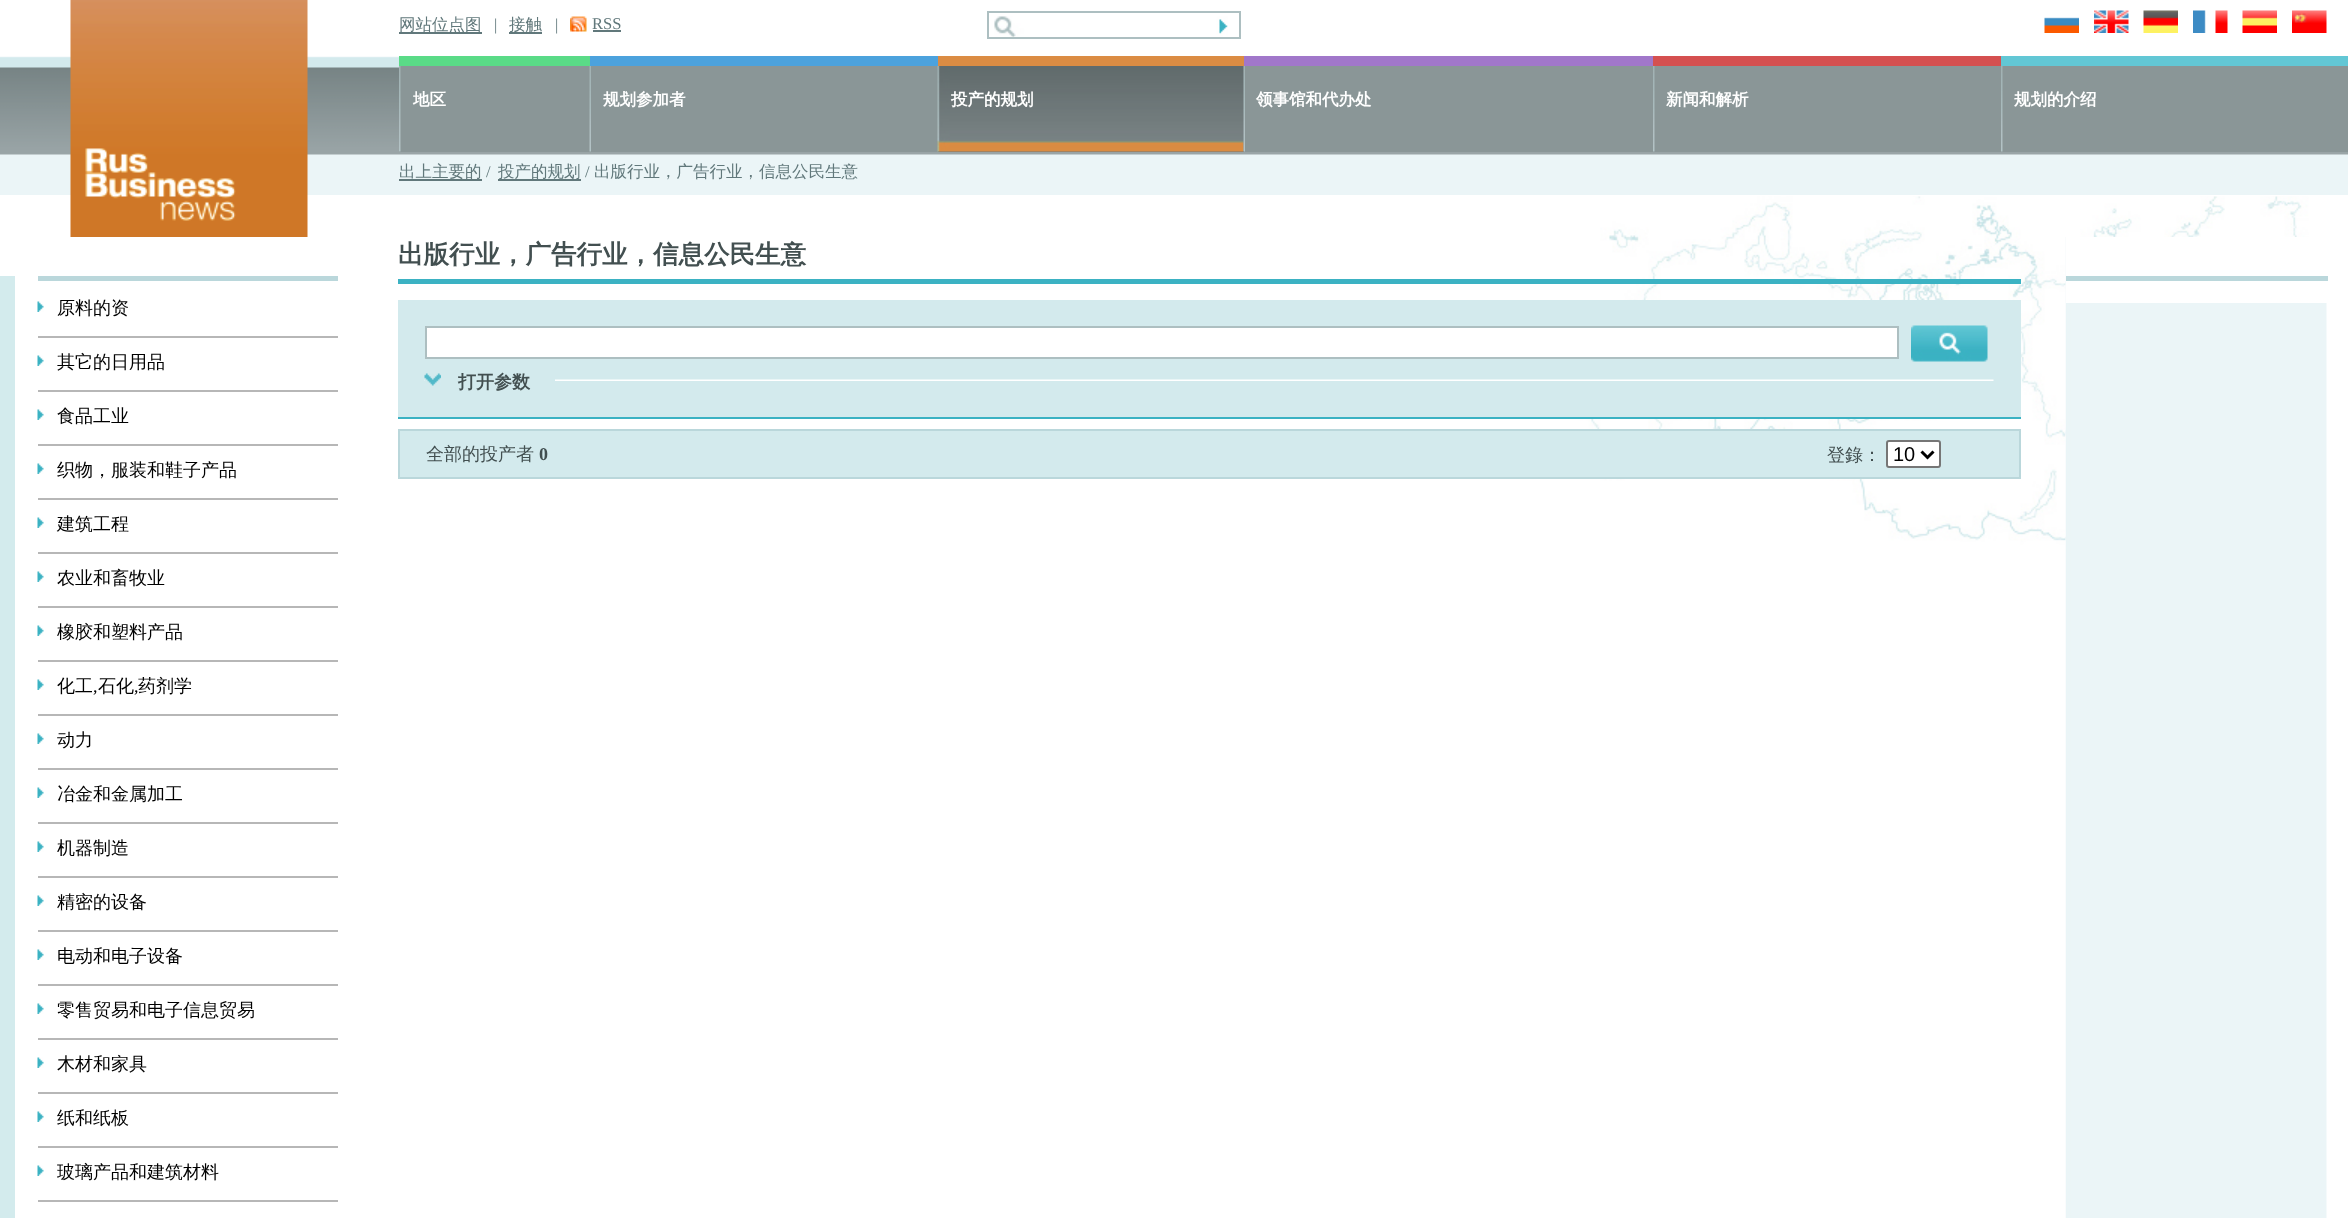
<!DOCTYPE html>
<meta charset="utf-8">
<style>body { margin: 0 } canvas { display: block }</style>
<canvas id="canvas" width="2348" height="1218"></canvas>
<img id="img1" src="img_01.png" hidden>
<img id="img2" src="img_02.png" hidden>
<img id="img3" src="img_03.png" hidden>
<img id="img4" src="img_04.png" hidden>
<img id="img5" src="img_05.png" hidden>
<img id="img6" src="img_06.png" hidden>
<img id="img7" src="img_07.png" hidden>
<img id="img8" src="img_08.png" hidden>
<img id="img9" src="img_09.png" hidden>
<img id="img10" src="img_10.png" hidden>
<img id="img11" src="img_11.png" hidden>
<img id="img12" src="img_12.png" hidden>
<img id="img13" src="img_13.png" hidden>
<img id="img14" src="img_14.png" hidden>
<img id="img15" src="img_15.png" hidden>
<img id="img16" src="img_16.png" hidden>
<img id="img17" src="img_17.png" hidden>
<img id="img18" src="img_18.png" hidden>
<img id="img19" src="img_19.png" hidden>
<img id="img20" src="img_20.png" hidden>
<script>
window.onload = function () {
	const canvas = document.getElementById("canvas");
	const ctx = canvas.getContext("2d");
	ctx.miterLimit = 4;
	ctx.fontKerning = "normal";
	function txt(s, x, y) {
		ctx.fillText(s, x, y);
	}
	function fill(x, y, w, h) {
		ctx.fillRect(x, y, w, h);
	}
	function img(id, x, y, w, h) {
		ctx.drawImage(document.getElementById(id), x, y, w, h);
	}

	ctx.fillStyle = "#FFFFFF";
	fill(0, 0, 2348, 1218);
	img("img1", 1578, 196, 768, 366);
	img("img2", 0, 56, 2348, 139);
	img("img3", 70, 0, 238, 237);
	ctx.fillStyle = "#61787B";
	fill(399, 32, 83, 2);
	fill(509, 32, 33, 2);
	img("img4", 570, 16, 17, 16);
	fill(593, 30, 28, 2);
	img("img5", 994, 16, 234, 21);
	ctx.strokeStyle = "#ADBFC1";
	ctx.lineWidth = 2;
	ctx.strokeRect(988, 12, 252, 26);
	img("img6", 2044, 17, 35, 16);
	img("img7", 2094, 10, 35, 23);
	img("img8", 2143, 10, 35, 23);
	img("img9", 2193, 10, 35, 23);
	img("img10", 2242, 10, 35, 23);
	img("img11", 2292, 10, 35, 23);
	ctx.fillStyle = "#8A9697";
	fill(399, 66, 539, 86);
	img("img12", 399, 66, 2, 86);
	ctx.fillStyle = "#5ADB87";
	fill(399, 56, 191, 10);
	img("img13", 589, 66, 2, 86);
	ctx.fillStyle = "#4CA2DD";
	fill(590, 56, 348, 10);
	ctx.fillStyle = "#6F797B";
	fill(938, 66, 306, 86);
	img("img14", 937, 66, 307, 86);
	ctx.fillStyle = "#DB8C43";
	fill(938, 56, 306, 10);
	ctx.fillStyle = "#8A9697";
	fill(1244, 66, 1104, 86);
	img("img15", 1243, 66, 2, 86);
	ctx.fillStyle = "#A177CA";
	fill(1244, 56, 409, 10);
	img("img12", 1653, 66, 2, 86);
	ctx.fillStyle = "#D55050";
	fill(1653, 56, 348, 10);
	img("img12", 2001, 66, 2, 86);
	ctx.fillStyle = "#62C7D5";
	fill(2001, 56, 347, 10);
	ctx.fillStyle = "#61787B";
	fill(399, 179, 83, 2);
	fill(498, 179, 83, 2);
	ctx.fillStyle = "#D3EBED";
	fill(0, 276, 15, 942);
	ctx.fillStyle = "#BAD7DB";
	fill(38, 276, 300, 5);
	img("img16", 37, 301, 7, 11);
	ctx.fillStyle = "#B7B7B7";
	fill(38, 336, 300, 2);
	img("img16", 37, 355, 7, 11);
	fill(38, 390, 300, 2);
	img("img16", 37, 409, 7, 11);
	fill(38, 444, 300, 2);
	img("img16", 37, 463, 7, 11);
	fill(38, 498, 300, 2);
	img("img16", 37, 517, 7, 11);
	fill(38, 552, 300, 2);
	img("img16", 37, 571, 7, 11);
	fill(38, 606, 300, 2);
	img("img16", 37, 625, 7, 11);
	fill(38, 660, 300, 2);
	img("img16", 37, 679, 7, 11);
	fill(38, 714, 300, 2);
	img("img16", 37, 733, 7, 11);
	fill(38, 768, 300, 2);
	img("img16", 37, 787, 7, 11);
	fill(38, 822, 300, 2);
	img("img16", 37, 841, 7, 11);
	fill(38, 876, 300, 2);
	img("img16", 37, 895, 7, 11);
	fill(38, 930, 300, 2);
	img("img16", 37, 949, 7, 11);
	fill(38, 984, 300, 2);
	img("img16", 37, 1003, 7, 11);
	fill(38, 1038, 300, 2);
	img("img16", 37, 1057, 7, 11);
	fill(38, 1092, 300, 2);
	img("img16", 37, 1111, 7, 11);
	fill(38, 1146, 300, 2);
	img("img16", 37, 1165, 7, 11);
	fill(38, 1200, 300, 2);
	ctx.fillStyle = "#3BB2C3";
	fill(398, 279, 1623, 5);
	ctx.fillStyle = "#D3EAED";
	fill(398, 300, 1623, 117);
	ctx.fillStyle = "#3BB2C3";
	fill(398, 417, 1623, 2);
	ctx.fillStyle = "#FFFFFF";
	ctx.beginPath();
	ctx.rect(426, 327, 1472, 31);
	ctx.fill();
	ctx.stroke();
	img("img17", 1911, 325, 77, 37);
	img("img18", 424, 379, 1570, 2);
	ctx.fillStyle = "#D3EAED";
	fill(425, 379, 130, 2);
	img("img19", 424, 373, 17, 13);
	ctx.beginPath();
	ctx.rect(399, 430, 1621, 48);
	ctx.fill();
	ctx.strokeStyle = "#BAD7DB";
	ctx.stroke();
	ctx.fillStyle = "#FFFFFF";
	ctx.beginPath();
	ctx.roundRect(1887, 441, 53, 26, 2);
	ctx.fill();
	ctx.strokeStyle = "#767676";
	ctx.stroke();
	ctx.beginPath();
	ctx.moveTo(1921.5, 451.5);
	ctx.lineTo(1927.5, 457.5);
	ctx.lineTo(1933.5, 451.5);
	ctx.strokeStyle = "#000000";
	ctx.lineWidth = 3;
	ctx.stroke();
	img("img20", 2065, 237, 283, 981);
	fill(2066, 237, 261, 39);
	fill(2066, 281, 262, 22);
	ctx.fillStyle = "#BAD7DB";
	fill(2066, 276, 262, 5);
	ctx.font = "500 16.5px WenQuanYi Zen Hei";
	ctx.fillStyle = "#61787B";
	txt("网站位点图", 399, 30);
	ctx.font = "16.5px Liberation Serif";
	txt("|", 494, 30);
	ctx.font = "500 16.5px WenQuanYi Zen Hei";
	txt("接触", 509, 30);
	ctx.font = "16.5px Liberation Serif";
	txt("|", 555, 30);
	txt("RSS", 592, 29);
	ctx.font = "bold 16.5px WenQuanYi Zen Hei";
	ctx.fillStyle = "#FFFFFF";
	txt("地区", 413, 105);
	txt("规划参加者", 603, 105);
	txt("投产的规划", 951, 105);
	txt("领事馆和代办处", 1256, 105);
	txt("新闻和解析", 1666, 105);
	txt("规划的介绍", 2014, 105);
	ctx.font = "500 16.5px WenQuanYi Zen Hei";
	ctx.fillStyle = "#61787B";
	txt("出上主要的", 399, 177);
	ctx.font = "16.5px Liberation Serif";
	txt("/", 486, 177);
	ctx.font = "500 16.5px WenQuanYi Zen Hei";
	txt("投产的规划", 498, 177);
	ctx.font = "16.5px Liberation Serif";
	txt("/", 585, 177);
	ctx.font = "500 16.5px WenQuanYi Zen Hei";
	txt("出版行业，广告行业，信息公民生意", 594, 177);
	ctx.font = "500 18px WenQuanYi Zen Hei";
	ctx.fillStyle = "#000000";
	txt("原料的资", 57, 314);
	txt("其它的日用品", 57, 368);
	txt("食品工业", 57, 422);
	txt("织物，服装和鞋子产品", 57, 476);
	txt("建筑工程", 57, 530);
	txt("农业和畜牧业", 57, 584);
	txt("橡胶和塑料产品", 57, 638);
	txt("化工", 57, 692);
	ctx.font = "18px Liberation Serif";
	txt(",", 93, 692);
	ctx.font = "500 18px WenQuanYi Zen Hei";
	txt("石化", 98, 692);
	ctx.font = "18px Liberation Serif";
	txt(",", 134, 692);
	ctx.font = "500 18px WenQuanYi Zen Hei";
	txt("药剂学", 138, 692);
	txt("动力", 57, 746);
	txt("冶金和金属加工", 57, 800);
	txt("机器制造", 57, 854);
	txt("精密的设备", 57, 908);
	txt("电动和电子设备", 57, 962);
	txt("零售贸易和电子信息贸易", 57, 1016);
	txt("木材和家具", 57, 1070);
	txt("纸和纸板", 57, 1124);
	txt("玻璃产品和建筑材料", 57, 1178);
	ctx.font = "bold 25.5px WenQuanYi Zen Hei";
	ctx.fillStyle = "#424F50";
	txt("出版行业，广告行业，信息公民生意", 398, 263);
	ctx.font = "bold 18px WenQuanYi Zen Hei";
	txt("打开参数", 458, 388);
	ctx.font = "500 18px WenQuanYi Zen Hei";
	txt("全部的投产者", 426, 460);
	ctx.font = "bold 18px Liberation Serif";
	txt("0", 539, 460);
	ctx.font = "500 18px WenQuanYi Zen Hei";
	txt("登錄：", 1827, 461);
	ctx.font = "20px Liberation Sans";
	ctx.fillStyle = "#000000";
	txt("10", 1893, 461);
};
</script>
